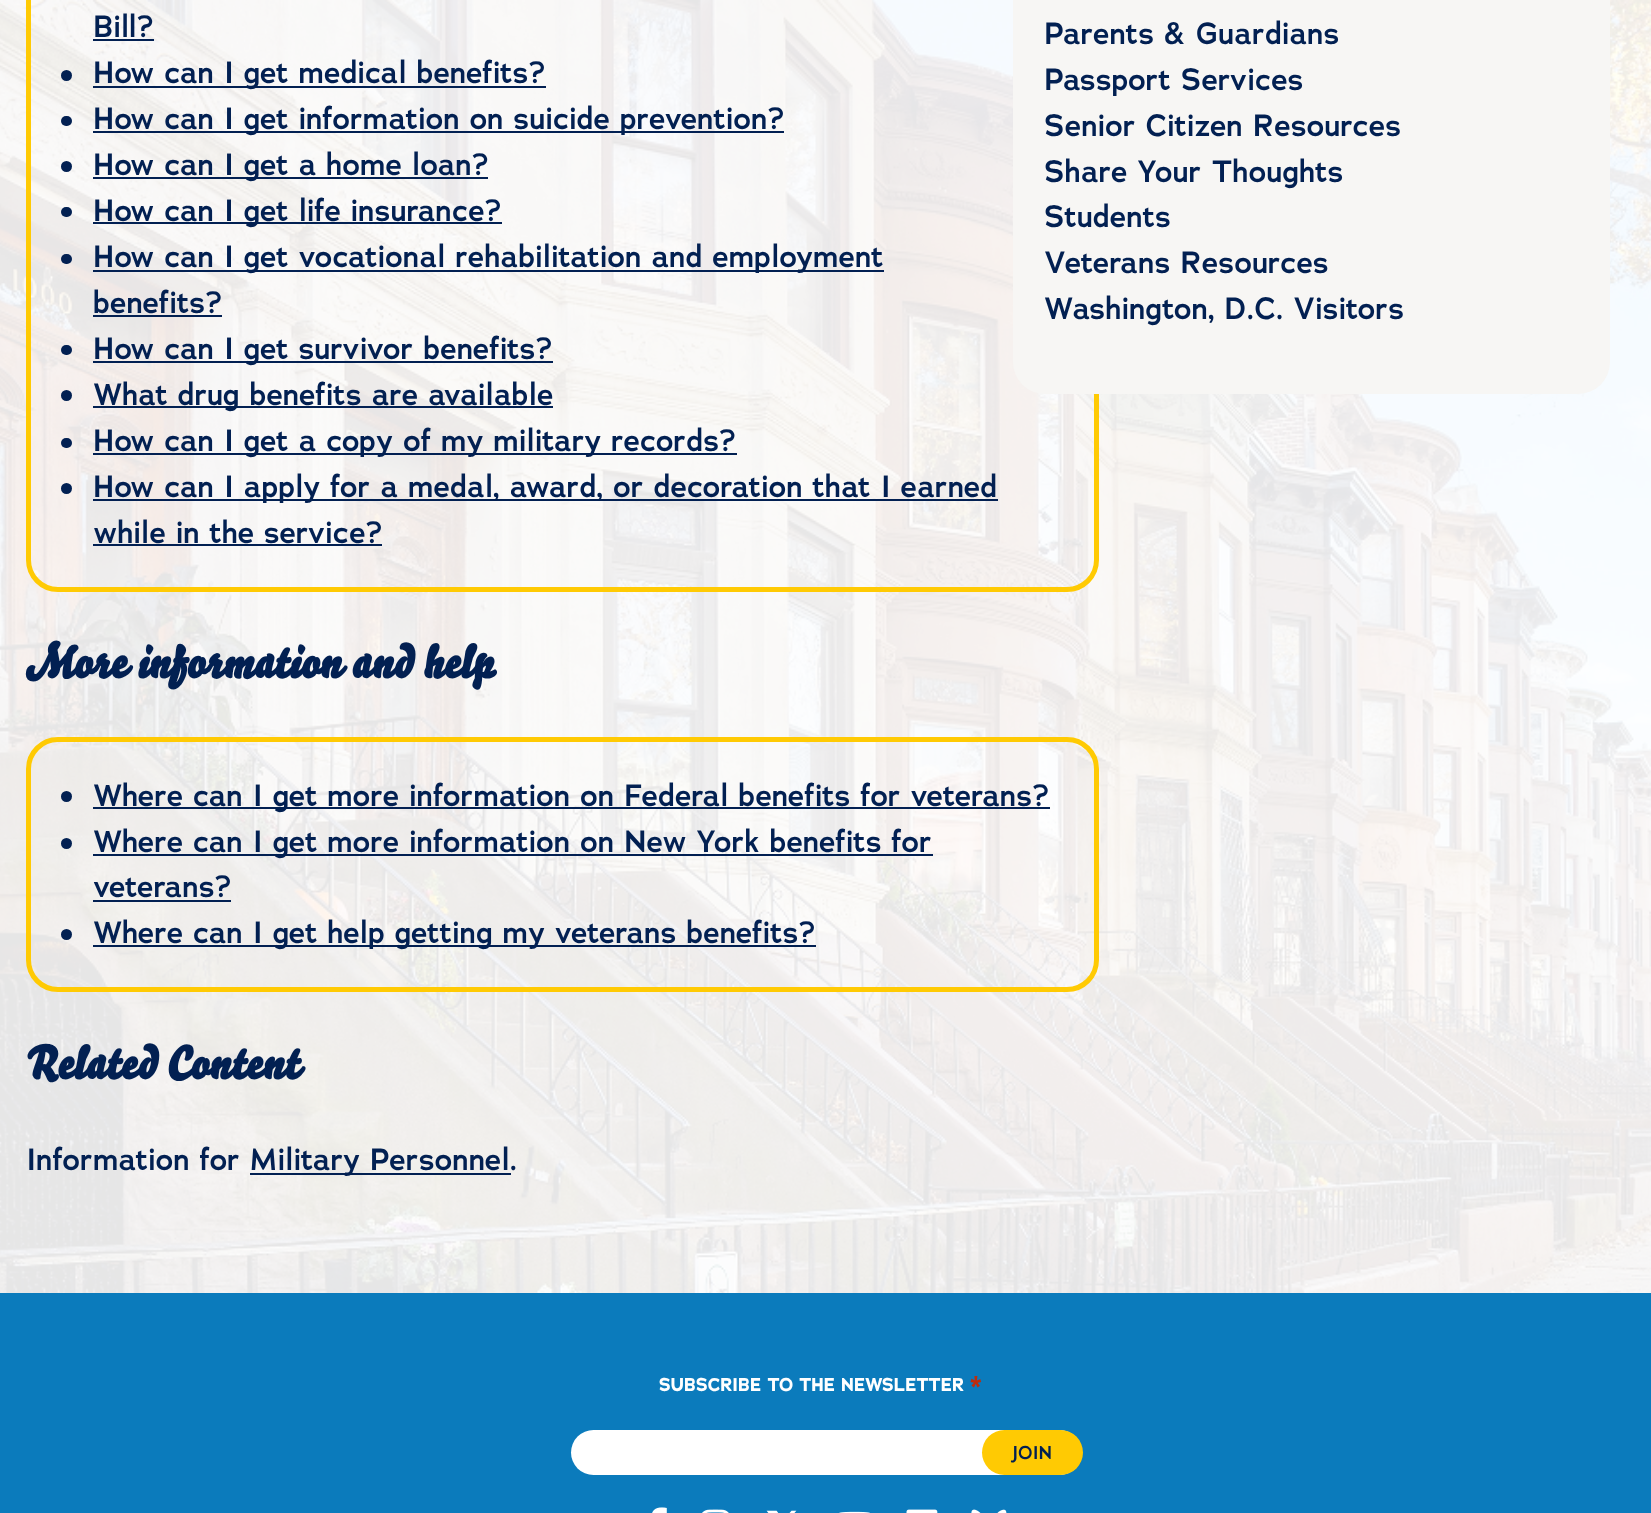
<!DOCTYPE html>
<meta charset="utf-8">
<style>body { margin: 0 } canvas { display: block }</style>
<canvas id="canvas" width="1651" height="1513"></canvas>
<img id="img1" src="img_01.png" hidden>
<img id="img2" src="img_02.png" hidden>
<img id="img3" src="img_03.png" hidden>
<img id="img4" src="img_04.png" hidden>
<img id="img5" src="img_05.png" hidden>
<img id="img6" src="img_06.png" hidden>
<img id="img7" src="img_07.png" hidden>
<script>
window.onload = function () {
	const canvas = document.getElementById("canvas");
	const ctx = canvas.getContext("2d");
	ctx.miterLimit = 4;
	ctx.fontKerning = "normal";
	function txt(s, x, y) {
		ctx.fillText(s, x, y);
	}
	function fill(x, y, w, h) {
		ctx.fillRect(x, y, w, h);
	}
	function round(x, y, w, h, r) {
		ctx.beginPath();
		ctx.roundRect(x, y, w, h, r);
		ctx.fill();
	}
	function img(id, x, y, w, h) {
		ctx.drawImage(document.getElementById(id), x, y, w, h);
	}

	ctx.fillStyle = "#FFFFFF";
	fill(0, 0, 1651, 1513);
	img("img1", 0, 0, 1651, 1293);
	ctx.fillStyle = "rgba(255, 255, 255, 0.8)";
	fill(0, 0, 1651, 1293);
	ctx.beginPath();
	ctx.roundRect(28.5, -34.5, 1068, 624, 29.5);
	ctx.strokeStyle = "#FFCA03";
	ctx.lineWidth = 5;
	ctx.stroke();
	ctx.fillStyle = "#022052";
	fill(93, 39, 61, 2);
	ctx.beginPath();
	ctx.arc(66.5, 75.5, 5.5, 0, Math.PI * 2);
	ctx.fill();
	fill(93, 86, 453, 2);
	round(61, 116, 11, 10, 5);
	fill(93, 131, 691, 2);
	ctx.beginPath();
	ctx.arc(66.5, 166.5, 5.5, 0, Math.PI * 2);
	ctx.fill();
	fill(93, 177, 395, 2);
	round(61, 207, 11, 10, 5);
	fill(93, 222, 409, 2);
	round(61, 254, 11, 10, 5);
	fill(93, 270, 791, 2);
	fill(93, 315, 129, 2);
	round(61, 345, 11, 10, 5);
	fill(93, 361, 460, 2);
	ctx.beginPath();
	ctx.arc(66.5, 395.5, 5.5, 0, Math.PI * 2);
	ctx.fill();
	fill(93, 406, 460, 2);
	round(61, 438, 11, 10, 5);
	fill(93, 453, 644, 2);
	ctx.beginPath();
	ctx.arc(66.5, 488.5, 5.5, 0, Math.PI * 2);
	ctx.fill();
	fill(93, 499, 905, 2);
	fill(93, 544, 289, 2);
	ctx.beginPath();
	ctx.roundRect(28.5, 739.5, 1068, 250, 29.5);
	ctx.stroke();
	ctx.beginPath();
	ctx.arc(66.5, 796.5, 5.5, 0, Math.PI * 2);
	ctx.fill();
	fill(93, 807, 957, 2);
	ctx.beginPath();
	ctx.arc(66.5, 843.5, 5.5, 0, Math.PI * 2);
	ctx.fill();
	fill(93, 854, 840, 2);
	fill(93, 900, 138, 2);
	ctx.beginPath();
	ctx.arc(66.5, 934.5, 5.5, 0, Math.PI * 2);
	ctx.fill();
	fill(93, 945, 723, 2);
	fill(250, 1173, 261, 2);
	ctx.fillStyle = "#F7F6F4";
	round(1013, -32, 597, 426, 32);
	ctx.fillStyle = "#0B7BBC";
	fill(0, 1293, 1651, 220);
	ctx.fillStyle = "#FFFFFF";
	ctx.beginPath();
	ctx.roundRect(571, 1430, 411, 45, [22.5, 0, 0, 22.5]);
	ctx.fill();
	ctx.beginPath();
	ctx.roundRect(982, 1430, 100, 45, [0, 22.5, 22.5, 0]);
	ctx.fill();
	ctx.fillStyle = "#FFCA03";
	round(982, 1430, 101, 45, 22.5);
	img("img2", 652, 1507, 15, 6);
	img("img3", 702, 1509, 27, 4);
	img("img4", 766, 1510, 31, 3);
	img("img5", 839, 1511, 31, 2);
	img("img6", 906, 1509, 32, 4);
	img("img7", 971, 1509, 36, 4);
	ctx.font = "600 30.6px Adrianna";
	ctx.fillStyle = "#022052";
	txt("Bill?", 93, 37);
	txt("How can I get medical benefits?", 93, 83);
	txt("How can I get information on suicide prevention?", 93, 129);
	txt("How can I get a home loan?", 93, 175);
	txt("How can I get life insurance?", 93, 221);
	txt("How can I get vocational rehabilitation and employment", 93, 267);
	txt("benefits?", 93, 313);
	txt("How can I get survivor benefits?", 93, 359);
	txt("What drug benefits are available", 93, 405);
	txt("How can I get a copy of my military records?", 93, 451);
	txt("How can I apply for a medal, award, or decoration that I earned", 93, 497);
	txt("while in the service?", 93, 543);
	ctx.font = "bold 46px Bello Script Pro";
	txt("More information and help", 26, 678);
	ctx.font = "600 30.6px Adrianna";
	txt("Where can I get more information on Federal benefits for veterans?", 93, 806);
	txt("Where can I get more information on New York benefits for", 93, 852);
	txt("veterans?", 93, 897);
	txt("Where can I get help getting my veterans benefits?", 93, 943);
	ctx.font = "bold 46px Bello Script Pro";
	txt("Related Content", 26, 1079);
	ctx.font = "600 30.6px Adrianna";
	txt("Information for", 26, 1170);
	txt("Military Personnel.", 250, 1170);
	txt("Parents & Guardians", 1044, 44);
	txt("Passport Services", 1044, 90);
	txt("Senior Citizen Resources", 1044, 136);
	txt("Share Your Thoughts", 1044, 182);
	txt("Students", 1044, 227);
	txt("Veterans Resources", 1044, 273);
	txt("Washington, D.C. Visitors", 1044, 319);
	ctx.font = "bold 18.4px Adrianna";
	ctx.fillStyle = "#FFFFFF";
	txt("SUBSCRIBE TO THE NEWSLETTER", 659, 1391);
	ctx.font = "bold 23px Adrianna";
	ctx.fillStyle = "#C02B0A";
	txt("*", 970, 1391);
	ctx.font = "600 18.4px Adrianna";
	ctx.fillStyle = "#022052";
	txt("JOIN", 1012, 1459);
};
</script>
